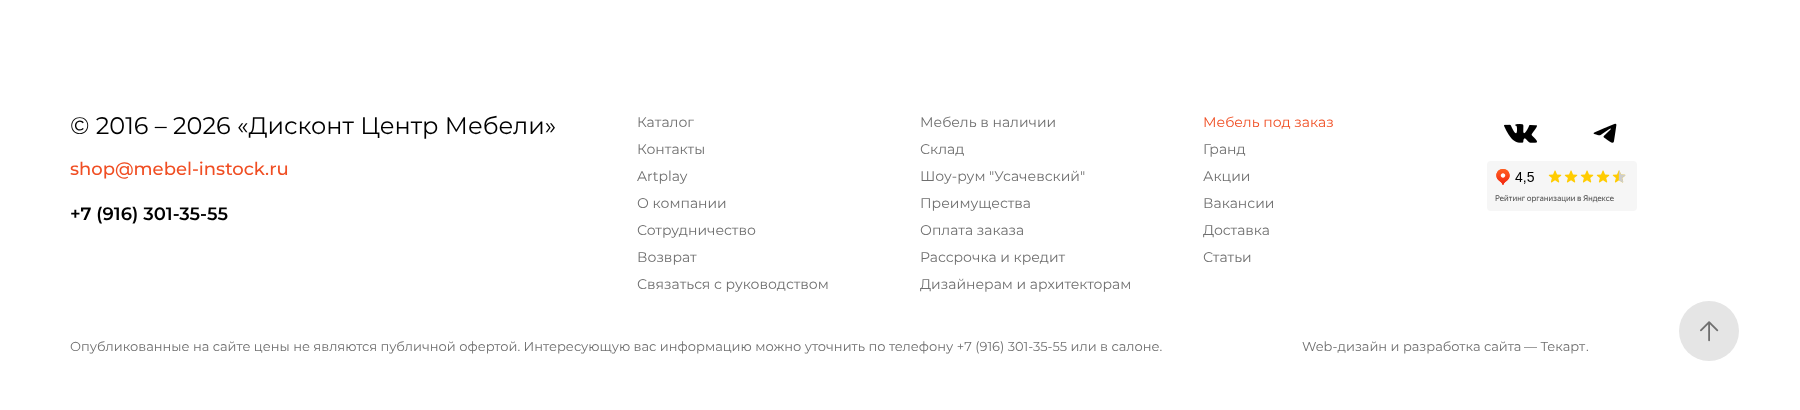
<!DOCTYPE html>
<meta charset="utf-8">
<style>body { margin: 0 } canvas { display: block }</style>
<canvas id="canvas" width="1800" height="410"></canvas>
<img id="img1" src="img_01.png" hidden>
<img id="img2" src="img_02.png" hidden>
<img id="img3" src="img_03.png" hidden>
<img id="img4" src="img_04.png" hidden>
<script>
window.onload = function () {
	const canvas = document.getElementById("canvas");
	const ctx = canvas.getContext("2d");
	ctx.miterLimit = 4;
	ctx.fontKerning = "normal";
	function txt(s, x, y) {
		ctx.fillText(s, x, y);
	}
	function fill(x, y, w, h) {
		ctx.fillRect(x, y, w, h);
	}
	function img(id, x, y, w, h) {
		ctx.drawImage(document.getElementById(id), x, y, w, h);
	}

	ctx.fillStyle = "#FFFFFF";
	fill(0, 0, 1800, 410);
	img("img1", 1504, 124, 33, 19);
	img("img2", 1593, 123, 24, 20);
	img("img3", 1487, 161, 150, 50);
	ctx.fillStyle = "#E5E5E5";
	ctx.beginPath();
	ctx.arc(1709, 331, 30, 0, Math.PI * 2);
	ctx.fill();
	img("img4", 1700, 321, 19, 21);
	ctx.font = "24px Montserrat";
	ctx.fillStyle = "#000000";
	txt("© 2016 – 2026 «Дисконт Центр Мебели»", 70, 134);
	ctx.font = "14px Montserrat";
	ctx.fillStyle = "#6F6F6F";
	txt("Каталог", 637, 127);
	txt("Мебель в наличии", 920, 127);
	ctx.fillStyle = "#F04E23";
	txt("Мебель под заказ", 1203, 127);
	ctx.fillStyle = "#6F6F6F";
	txt("Контакты", 637, 154);
	txt("Склад", 920, 154);
	txt("Гранд", 1203, 154);
	txt("Artplay", 637, 181);
	txt("Шоу-рум \"Усачевский\"", 920, 181);
	txt("Акции", 1203, 181);
	txt("О компании", 637, 208);
	txt("Преимущества", 920, 208);
	txt("Вакансии", 1203, 208);
	txt("Сотрудничество", 637, 235);
	txt("Оплата заказа", 920, 235);
	txt("Доставка", 1203, 235);
	txt("Возврат", 637, 262);
	txt("Рассрочка и кредит", 920, 262);
	txt("Статьи", 1203, 262);
	txt("Связаться с руководством", 637, 289);
	txt("Дизайнерам и архитекторам", 920, 289);
	ctx.font = "500 18px Montserrat";
	ctx.fillStyle = "#F04E23";
	txt("shop@mebel-instock.ru", 70, 175);
	ctx.font = "600 18px Montserrat";
	ctx.fillStyle = "#000000";
	txt("+7 (916) 301-35-55", 70, 220);
	ctx.font = "13px Montserrat";
	ctx.fillStyle = "#6F6F6F";
	txt("Опубликованные на сайте цены не являются публичной офертой. Интересующую вас информацию можно уточнить по телефону +7 (916) 301-35-55 или в салоне.", 70, 351);
	txt("Web-дизайн и разработка сайта", 1302, 351);
	txt("— Текарт", 1524, 351);
	txt(".", 1586, 351);
};
</script>
